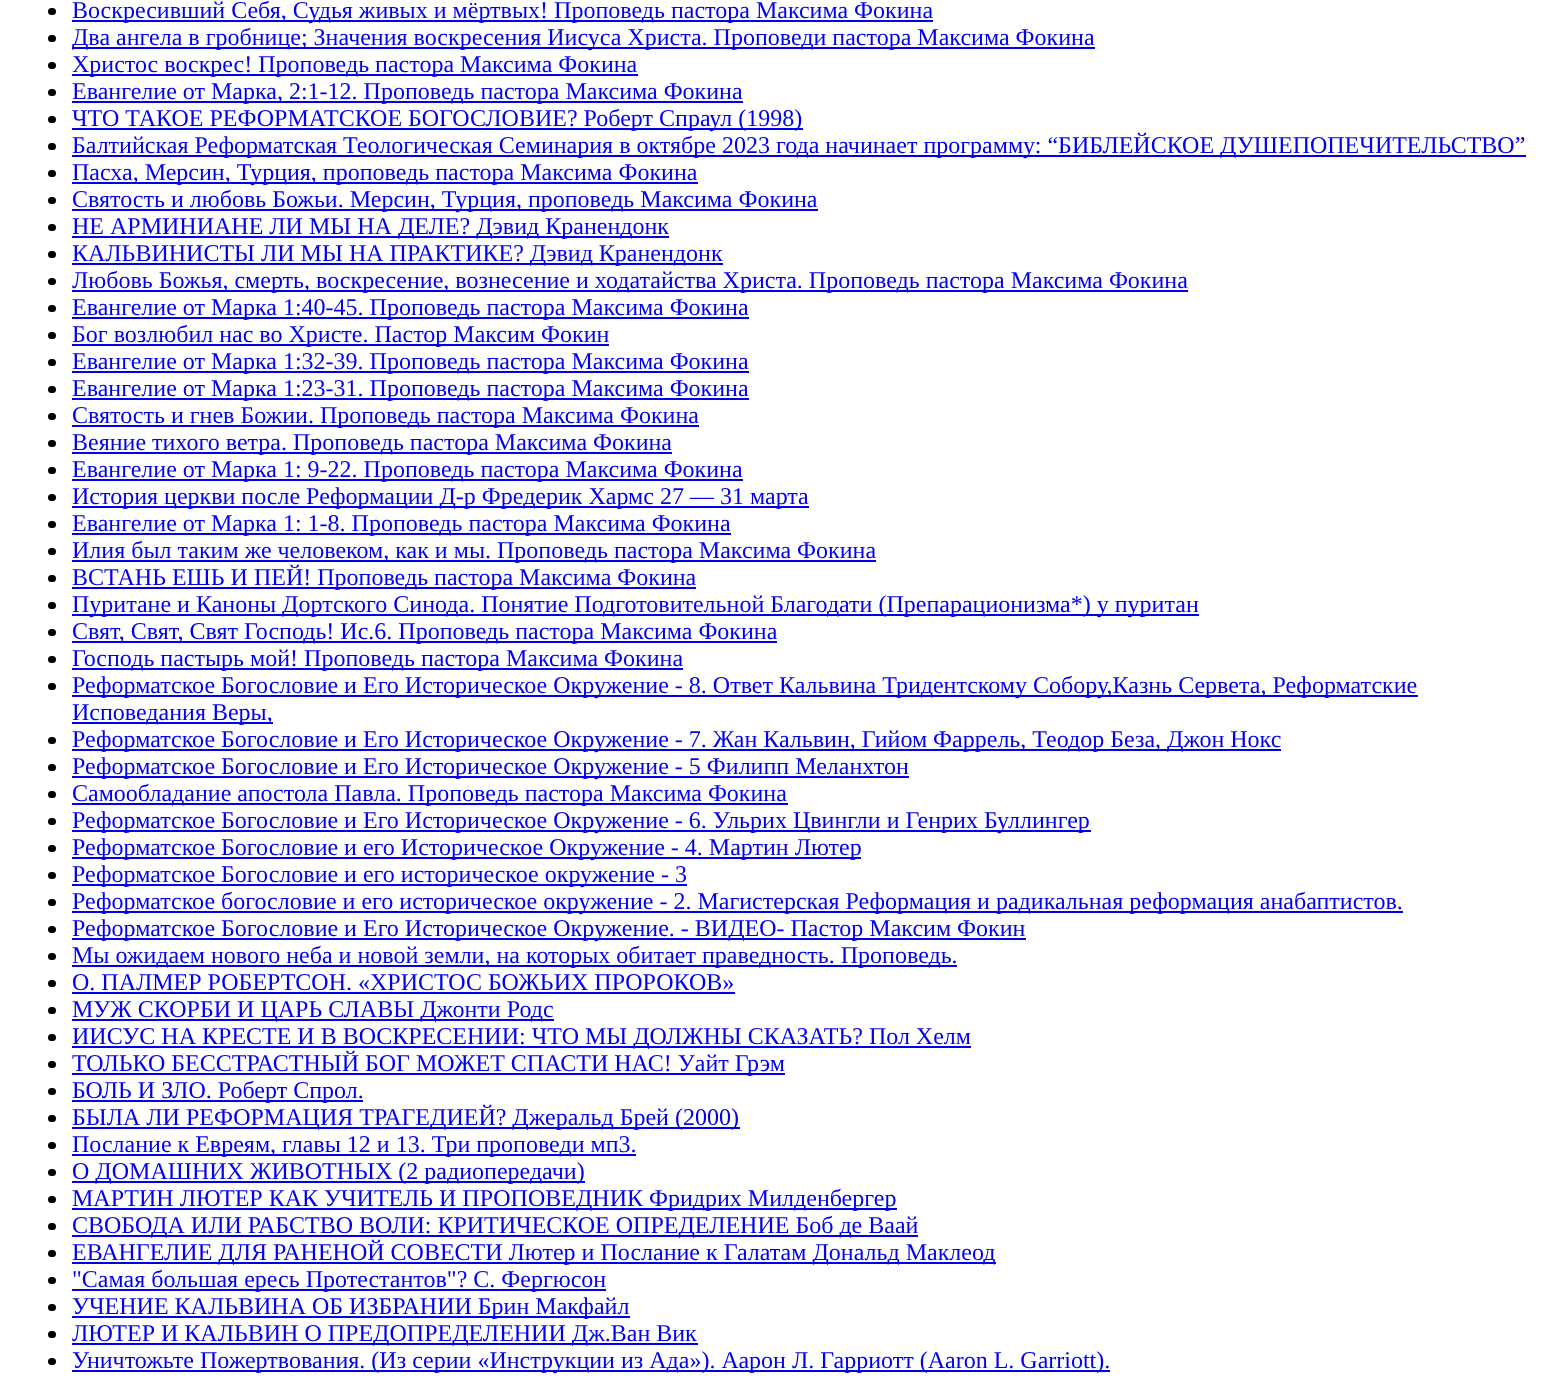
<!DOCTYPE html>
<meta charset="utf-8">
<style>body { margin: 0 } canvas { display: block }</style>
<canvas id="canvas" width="1561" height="1381"></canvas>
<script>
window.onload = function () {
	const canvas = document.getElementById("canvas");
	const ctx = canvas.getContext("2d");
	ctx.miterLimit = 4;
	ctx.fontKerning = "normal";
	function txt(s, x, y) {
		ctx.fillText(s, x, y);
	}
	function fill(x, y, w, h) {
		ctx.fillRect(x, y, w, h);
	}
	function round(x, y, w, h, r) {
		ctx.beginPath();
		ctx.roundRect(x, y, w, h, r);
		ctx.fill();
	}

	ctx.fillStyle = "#FFFFFF";
	fill(0, 0, 1561, 1381);
	ctx.fillStyle = "#000000";
	round(48, 8, 8, 7, 3.5);
	ctx.fillStyle = "#0000EE";
	fill(72, 20, 861, 2);
	ctx.fillStyle = "#000000";
	round(48, 35, 8, 7, 3.5);
	ctx.fillStyle = "#0000EE";
	fill(72, 47, 1023, 2);
	ctx.fillStyle = "#000000";
	round(48, 62, 8, 7, 3.5);
	ctx.fillStyle = "#0000EE";
	fill(72, 74, 566, 2);
	ctx.fillStyle = "#000000";
	round(48, 89, 8, 7, 3.5);
	ctx.fillStyle = "#0000EE";
	fill(72, 101, 671, 2);
	ctx.fillStyle = "#000000";
	round(48, 116, 8, 7, 3.5);
	ctx.fillStyle = "#0000EE";
	fill(72, 128, 731, 2);
	ctx.fillStyle = "#000000";
	round(48, 143, 8, 7, 3.5);
	ctx.fillStyle = "#0000EE";
	fill(72, 155, 1454, 2);
	ctx.fillStyle = "#000000";
	round(48, 170, 8, 7, 3.5);
	ctx.fillStyle = "#0000EE";
	fill(72, 182, 626, 2);
	ctx.fillStyle = "#000000";
	round(48, 197, 8, 7, 3.5);
	ctx.fillStyle = "#0000EE";
	fill(72, 209, 746, 2);
	ctx.fillStyle = "#000000";
	round(48, 224, 8, 7, 3.5);
	ctx.fillStyle = "#0000EE";
	fill(72, 236, 597, 2);
	ctx.fillStyle = "#000000";
	round(48, 251, 8, 7, 3.5);
	ctx.fillStyle = "#0000EE";
	fill(72, 263, 651, 2);
	ctx.fillStyle = "#000000";
	round(48, 278, 8, 7, 3.5);
	ctx.fillStyle = "#0000EE";
	fill(72, 290, 1116, 2);
	ctx.fillStyle = "#000000";
	round(48, 305, 8, 7, 3.5);
	ctx.fillStyle = "#0000EE";
	fill(72, 317, 677, 2);
	ctx.fillStyle = "#000000";
	round(48, 332, 8, 7, 3.5);
	ctx.fillStyle = "#0000EE";
	fill(72, 344, 537, 2);
	ctx.fillStyle = "#000000";
	round(48, 359, 8, 7, 3.5);
	ctx.fillStyle = "#0000EE";
	fill(72, 371, 677, 2);
	ctx.fillStyle = "#000000";
	round(48, 386, 8, 7, 3.5);
	ctx.fillStyle = "#0000EE";
	fill(72, 398, 677, 2);
	ctx.fillStyle = "#000000";
	round(48, 413, 8, 7, 3.5);
	ctx.fillStyle = "#0000EE";
	fill(72, 425, 627, 2);
	ctx.fillStyle = "#000000";
	round(48, 440, 8, 7, 3.5);
	ctx.fillStyle = "#0000EE";
	fill(72, 452, 600, 2);
	ctx.fillStyle = "#000000";
	round(48, 467, 8, 7, 3.5);
	ctx.fillStyle = "#0000EE";
	fill(72, 479, 671, 2);
	ctx.fillStyle = "#000000";
	round(48, 494, 8, 7, 3.5);
	ctx.fillStyle = "#0000EE";
	fill(72, 506, 737, 2);
	ctx.fillStyle = "#000000";
	round(48, 521, 8, 7, 3.5);
	ctx.fillStyle = "#0000EE";
	fill(72, 533, 659, 2);
	ctx.fillStyle = "#000000";
	round(48, 548, 8, 7, 3.5);
	ctx.fillStyle = "#0000EE";
	fill(72, 560, 804, 2);
	ctx.fillStyle = "#000000";
	round(48, 575, 8, 7, 3.5);
	ctx.fillStyle = "#0000EE";
	fill(72, 587, 624, 2);
	ctx.fillStyle = "#000000";
	round(48, 602, 8, 7, 3.5);
	ctx.fillStyle = "#0000EE";
	fill(72, 614, 1127, 2);
	ctx.fillStyle = "#000000";
	round(48, 629, 8, 7, 3.5);
	ctx.fillStyle = "#0000EE";
	fill(72, 641, 705, 2);
	ctx.fillStyle = "#000000";
	round(48, 656, 8, 7, 3.5);
	ctx.fillStyle = "#0000EE";
	fill(72, 668, 611, 2);
	ctx.fillStyle = "#000000";
	round(48, 683, 8, 7, 3.5);
	ctx.fillStyle = "#0000EE";
	fill(72, 695, 1346, 2);
	fill(72, 722, 201, 2);
	ctx.fillStyle = "#000000";
	round(48, 737, 8, 7, 3.5);
	ctx.fillStyle = "#0000EE";
	fill(72, 749, 1209, 2);
	ctx.fillStyle = "#000000";
	round(48, 764, 8, 7, 3.5);
	ctx.fillStyle = "#0000EE";
	fill(72, 776, 837, 2);
	ctx.fillStyle = "#000000";
	round(48, 791, 8, 7, 3.5);
	ctx.fillStyle = "#0000EE";
	fill(72, 803, 716, 2);
	ctx.fillStyle = "#000000";
	round(48, 818, 8, 7, 3.5);
	ctx.fillStyle = "#0000EE";
	fill(72, 830, 1019, 2);
	ctx.fillStyle = "#000000";
	round(48, 845, 8, 7, 3.5);
	ctx.fillStyle = "#0000EE";
	fill(72, 857, 789, 2);
	ctx.fillStyle = "#000000";
	round(48, 872, 8, 7, 3.5);
	ctx.fillStyle = "#0000EE";
	fill(72, 884, 615, 2);
	ctx.fillStyle = "#000000";
	round(48, 899, 8, 7, 3.5);
	ctx.fillStyle = "#0000EE";
	fill(72, 911, 1331, 2);
	ctx.fillStyle = "#000000";
	round(48, 926, 8, 7, 3.5);
	ctx.fillStyle = "#0000EE";
	fill(72, 938, 954, 2);
	ctx.fillStyle = "#000000";
	round(48, 953, 8, 7, 3.5);
	ctx.fillStyle = "#0000EE";
	fill(72, 965, 885, 2);
	ctx.fillStyle = "#000000";
	round(48, 980, 8, 7, 3.5);
	ctx.fillStyle = "#0000EE";
	fill(72, 992, 663, 2);
	ctx.fillStyle = "#000000";
	round(48, 1007, 8, 7, 3.5);
	ctx.fillStyle = "#0000EE";
	fill(72, 1019, 482, 2);
	ctx.fillStyle = "#000000";
	round(48, 1034, 8, 7, 3.5);
	ctx.fillStyle = "#0000EE";
	fill(72, 1046, 899, 2);
	ctx.fillStyle = "#000000";
	round(48, 1061, 8, 7, 3.5);
	ctx.fillStyle = "#0000EE";
	fill(72, 1073, 713, 2);
	ctx.fillStyle = "#000000";
	round(48, 1088, 8, 7, 3.5);
	ctx.fillStyle = "#0000EE";
	fill(72, 1100, 291, 2);
	ctx.fillStyle = "#000000";
	round(48, 1115, 8, 7, 3.5);
	ctx.fillStyle = "#0000EE";
	fill(72, 1127, 668, 2);
	ctx.fillStyle = "#000000";
	round(48, 1142, 8, 7, 3.5);
	ctx.fillStyle = "#0000EE";
	fill(72, 1154, 564, 2);
	ctx.fillStyle = "#000000";
	round(48, 1169, 8, 7, 3.5);
	ctx.fillStyle = "#0000EE";
	fill(72, 1181, 513, 2);
	ctx.fillStyle = "#000000";
	round(48, 1196, 8, 7, 3.5);
	ctx.fillStyle = "#0000EE";
	fill(72, 1208, 825, 2);
	ctx.fillStyle = "#000000";
	round(48, 1223, 8, 7, 3.5);
	ctx.fillStyle = "#0000EE";
	fill(72, 1235, 846, 2);
	ctx.fillStyle = "#000000";
	round(48, 1250, 8, 7, 3.5);
	ctx.fillStyle = "#0000EE";
	fill(72, 1262, 924, 2);
	ctx.fillStyle = "#000000";
	round(48, 1277, 8, 7, 3.5);
	ctx.fillStyle = "#0000EE";
	fill(72, 1289, 534, 2);
	ctx.fillStyle = "#000000";
	round(48, 1304, 8, 7, 3.5);
	ctx.fillStyle = "#0000EE";
	fill(72, 1316, 558, 2);
	ctx.fillStyle = "#000000";
	round(48, 1331, 8, 7, 3.5);
	ctx.fillStyle = "#0000EE";
	fill(72, 1343, 626, 2);
	ctx.fillStyle = "#000000";
	round(48, 1358, 8, 7, 3.5);
	ctx.fillStyle = "#0000EE";
	fill(72, 1370, 1038, 2);
	ctx.font = "24px Liberation Serif";
	txt("Воскресивший Себя, Судья живых и мëртвых! Проповедь пастора Максима Фокина", 72, 18);
	txt("Два ангела в гробнице; Значения воскресения Иисуса Христа. Проповеди пастора Максима Фокина", 72, 45);
	txt("Христос воскрес! Проповедь пастора Максима Фокина", 72, 72);
	txt("Евангелие от Марка, 2:1-12. Проповедь пастора Максима Фокина", 72, 99);
	txt("ЧТО ТАКОЕ РЕФОРМАТСКОЕ БОГОСЛОВИЕ? Роберт Спраул (1998)", 72, 126);
	txt("Балтийская Реформатская Теологическая Семинария в октябре 2023 года начинает программу: “БИБЛЕЙСКОЕ ДУШЕПОПЕЧИТЕЛЬСТВО”", 72, 153);
	txt("Пасха, Мерсин, Турция, проповедь пастора Максима Фокина", 72, 180);
	txt("Святость и любовь Божьи. Мерсин, Турция, проповедь Максима Фокина", 72, 207);
	txt("НЕ АРМИНИАНЕ ЛИ МЫ НА ДЕЛЕ? Дэвид Кранендонк", 72, 234);
	txt("КАЛЬВИНИСТЫ ЛИ МЫ НА ПРАКТИКЕ? Дэвид Кранендонк", 72, 261);
	txt("Любовь Божья, смерть, воскресение, вознесение и ходатайства Христа. Проповедь пастора Максима Фокина", 72, 288);
	txt("Евангелие от Марка 1:40-45. Проповедь пастора Максима Фокина", 72, 315);
	txt("Бог возлюбил нас во Христе. Пастор Максим Фокин", 72, 342);
	txt("Евангелие от Марка 1:32-39. Проповедь пастора Максима Фокина", 72, 369);
	txt("Евангелие от Марка 1:23-31. Проповедь пастора Максима Фокина", 72, 396);
	txt("Святость и гнев Божии. Проповедь пастора Максима Фокина", 72, 423);
	txt("Веяние тихого ветра. Проповедь пастора Максима Фокина", 72, 450);
	txt("Евангелие от Марка 1: 9-22. Проповедь пастора Максима Фокина", 72, 477);
	txt("История церкви после Реформации Д-р Фредерик Хармс 27 — 31 марта", 72, 504);
	txt("Евангелие от Марка 1: 1-8. Проповедь пастора Максима Фокина", 72, 531);
	txt("Илия был таким же человеком, как и мы. Проповедь пастора Максима Фокина", 72, 558);
	txt("ВСТАНЬ ЕШЬ И ПЕЙ! Проповедь пастора Максима Фокина", 72, 585);
	txt("Пуритане и Каноны Дортского Синода. Понятие Подготовительной Благодати (Препарационизма*) у пуритан", 72, 612);
	txt("Свят, Свят, Свят Господь! Ис.6. Проповедь пастора Максима Фокина", 72, 639);
	txt("Господь пастырь мой! Проповедь пастора Максима Фокина", 72, 666);
	txt("Реформатское Богословие и Его Историческое Окружение - 8. Ответ Кальвина Тридентскому Собору,Казнь Сервета, Реформатские", 72, 693);
	txt("Исповедания Веры,", 72, 720);
	txt("Реформатское Богословие и Его Историческое Окружение - 7. Жан Кальвин, Гийом Фаррель, Теодор Беза, Джон Нокс", 72, 747);
	txt("Реформатское Богословие и Его Историческое Окружение - 5 Филипп Меланхтон", 72, 774);
	txt("Самообладание апостола Павла. Проповедь пастора Максима Фокина", 72, 801);
	txt("Реформатское Богословие и Его Историческое Окружение - 6. Ульрих Цвингли и Генрих Буллингер", 72, 828);
	txt("Реформатское Богословие и его Историческое Окружение - 4. Мартин Лютер", 72, 855);
	txt("Реформатское Богословие и его историческое окружение - 3", 72, 882);
	txt("Реформатское богословие и его историческое окружение - 2. Магистерская Реформация и радикальная реформация анабаптистов.", 72, 909);
	txt("Реформатское Богословие и Его Историческое Окружение. - ВИДЕО- Пастор Максим Фокин", 72, 936);
	txt("Мы ожидаем нового неба и новой земли, на которых обитает праведность. Проповедь.", 72, 963);
	txt("О. ПАЛМЕР РОБЕРТСОН. «ХРИСТОС БОЖЬИХ ПРОРОКОВ»", 72, 990);
	txt("МУЖ СКОРБИ И ЦАРЬ СЛАВЫ Джонти Родс", 72, 1017);
	txt("ИИСУС НА КРЕСТЕ И В ВОСКРЕСЕНИИ: ЧТО МЫ ДОЛЖНЫ СКАЗАТЬ? Пол Хелм", 72, 1044);
	txt("ТОЛЬКО БЕССТРАСТНЫЙ БОГ МОЖЕТ СПАСТИ НАС! Уайт Грэм", 72, 1071);
	txt("БОЛЬ И ЗЛО. Роберт Спрол.", 72, 1098);
	txt("БЫЛА ЛИ РЕФОРМАЦИЯ ТРАГЕДИЕЙ? Джеральд Брей (2000)", 72, 1125);
	txt("Послание к Евреям, главы 12 и 13. Три проповеди мп3.", 72, 1152);
	txt("О ДОМАШНИХ ЖИВОТНЫХ (2 радиопередачи)", 72, 1179);
	txt("МАРТИН ЛЮТЕР КАК УЧИТЕЛЬ И ПРОПОВЕДНИК Фридрих Милденбергер", 72, 1206);
	txt("СВОБОДА ИЛИ РАБСТВО ВОЛИ: КРИТИЧЕСКОЕ ОПРЕДЕЛЕНИЕ Боб де Ваай", 72, 1233);
	txt("ЕВАНГЕЛИЕ ДЛЯ РАНЕНОЙ СОВЕСТИ Лютер и Послание к Галатам Дональд Маклеод", 72, 1260);
	txt("\"Самая большая ересь Протестантов\"? С. Фергюсон", 72, 1287);
	txt("УЧЕНИЕ КАЛЬВИНА ОБ ИЗБРАНИИ Брин Макфайл", 72, 1314);
	txt("ЛЮТЕР И КАЛЬВИН О ПРЕДОПРЕДЕЛЕНИИ Дж.Ван Вик", 72, 1341);
	txt("Уничтожьте Пожертвования. (Из серии «Инструкции из Ада»). Аарон Л. Гарриотт (Aaron L. Garriott).", 72, 1368);
};
</script>
